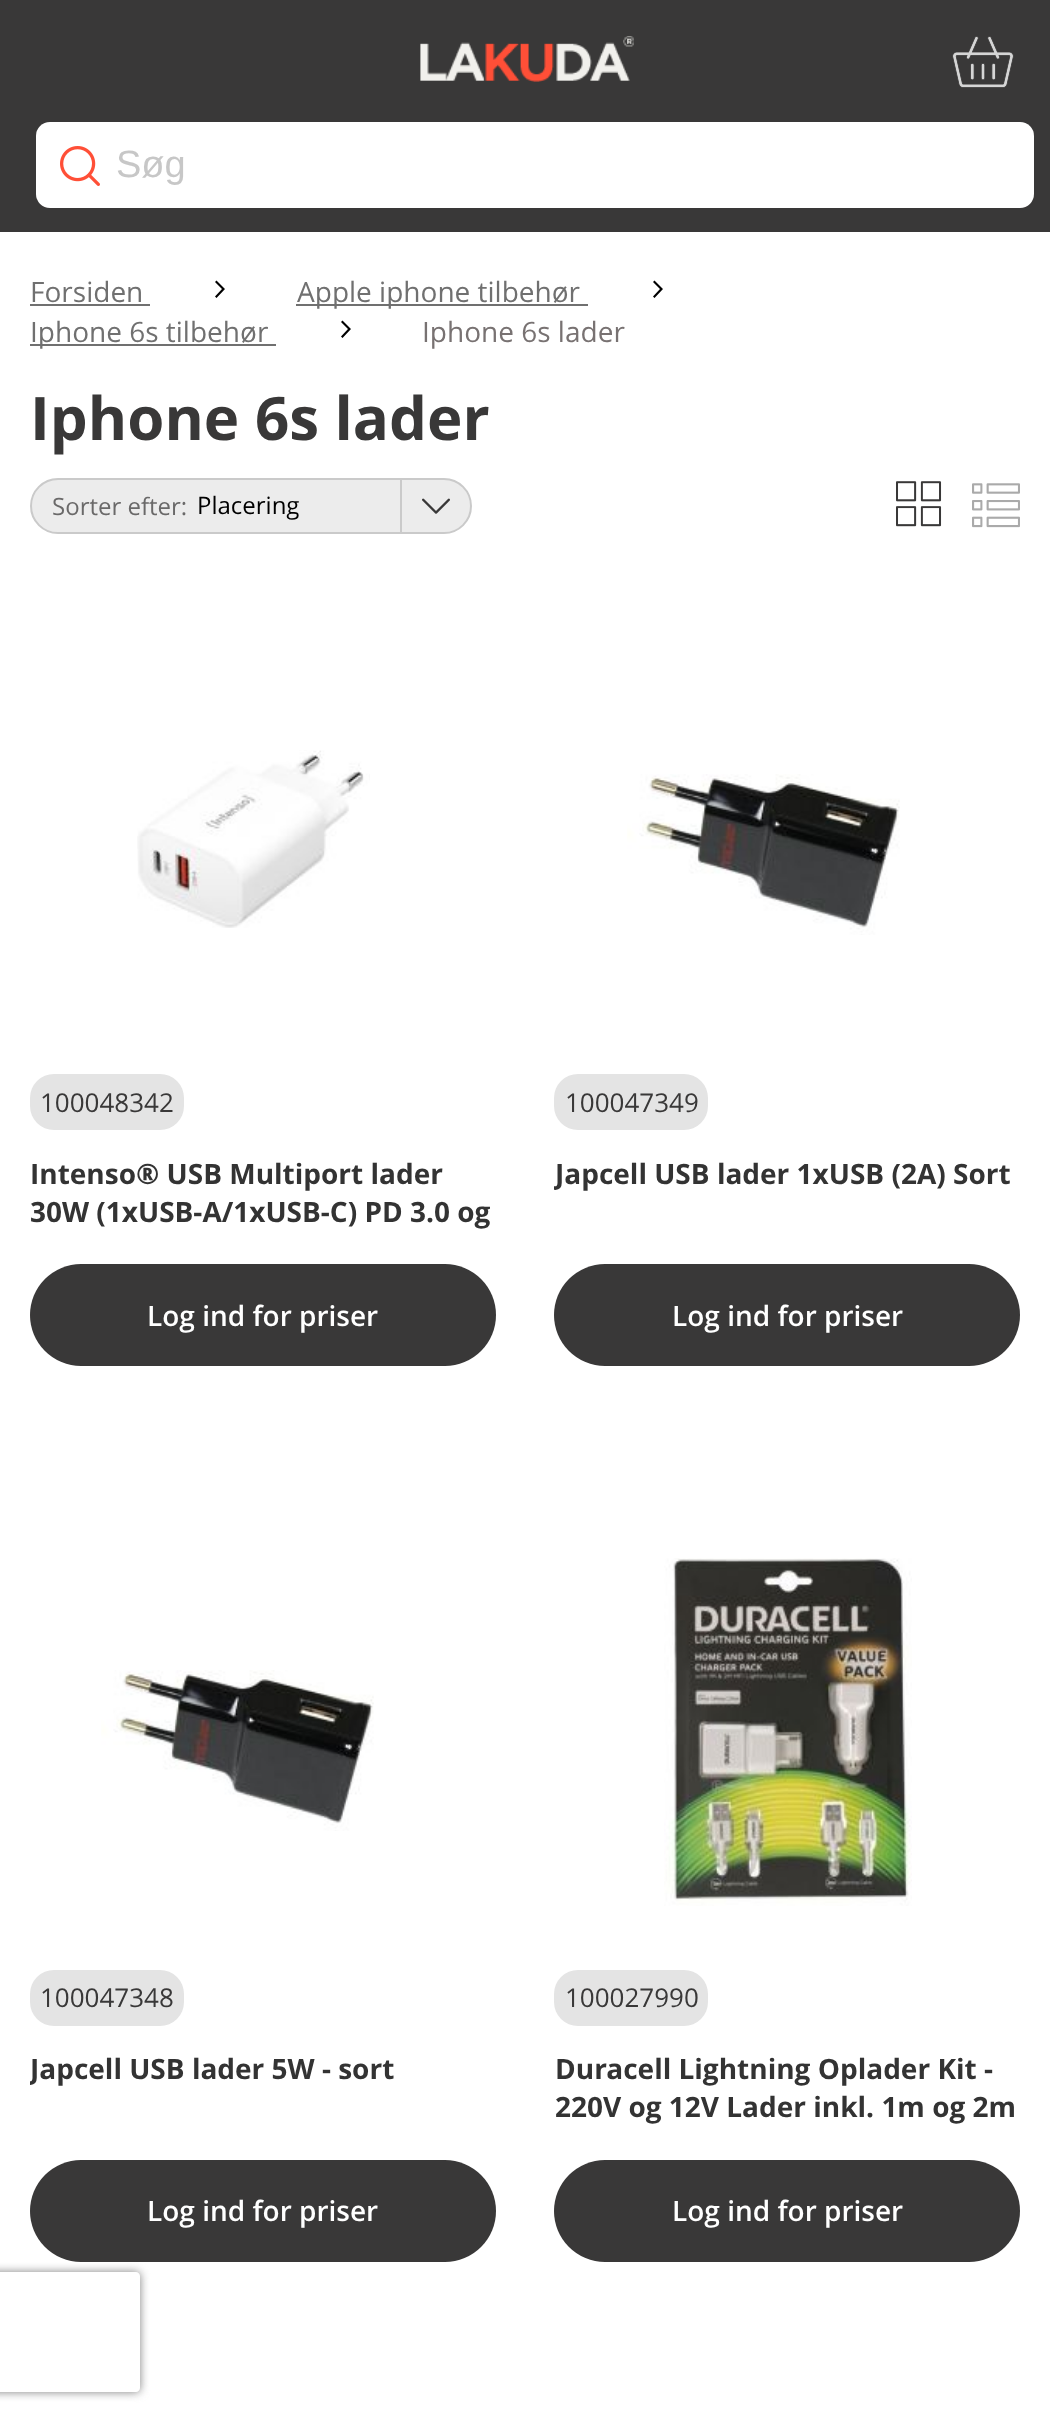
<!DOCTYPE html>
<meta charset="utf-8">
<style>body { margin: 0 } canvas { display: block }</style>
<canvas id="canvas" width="1050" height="2420"></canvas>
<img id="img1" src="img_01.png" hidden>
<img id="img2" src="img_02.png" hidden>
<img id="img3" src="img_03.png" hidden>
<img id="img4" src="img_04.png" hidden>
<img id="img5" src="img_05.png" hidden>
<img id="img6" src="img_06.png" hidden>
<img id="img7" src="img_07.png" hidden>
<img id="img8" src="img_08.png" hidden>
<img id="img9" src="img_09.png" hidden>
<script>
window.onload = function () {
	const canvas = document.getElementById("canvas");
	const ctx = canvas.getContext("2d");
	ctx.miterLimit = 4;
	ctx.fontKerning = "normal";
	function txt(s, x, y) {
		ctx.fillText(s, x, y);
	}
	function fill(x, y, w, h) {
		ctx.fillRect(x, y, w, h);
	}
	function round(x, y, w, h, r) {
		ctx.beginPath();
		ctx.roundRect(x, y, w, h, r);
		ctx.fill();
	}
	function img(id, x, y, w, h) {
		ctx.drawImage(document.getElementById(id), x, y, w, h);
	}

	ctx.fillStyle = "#FFFFFF";
	fill(0, 0, 1050, 2420);
	ctx.fillStyle = "#393838";
	fill(0, 0, 1050, 232);
	img("img1", 420, 36, 214, 46);
	img("img2", 952, 36, 62, 52);
	ctx.fillStyle = "#FFFFFF";
	round(36, 122, 998, 86, 14);
	img("img3", 60, 146, 40, 40);
	ctx.fillStyle = "#707070";
	fill(30, 304, 120, 2);
	ctx.fillStyle = "#000000";
	ctx.beginPath();
	ctx.moveTo(225, 289);
	ctx.lineTo(216.5, 280.5);
	ctx.lineTo(215, 282);
	ctx.lineTo(222, 289);
	ctx.lineTo(215, 296.5);
	ctx.lineTo(216.5, 298);
	ctx.closePath();
	ctx.fill();
	ctx.fillStyle = "#707070";
	fill(296, 304, 292, 2);
	ctx.fillStyle = "#000000";
	ctx.beginPath();
	ctx.moveTo(663, 289);
	ctx.lineTo(654.5, 280.5);
	ctx.lineTo(653, 282);
	ctx.lineTo(660, 289);
	ctx.lineTo(653, 296.5);
	ctx.lineTo(654.5, 298);
	ctx.closePath();
	ctx.fill();
	ctx.fillStyle = "#707070";
	fill(30, 344, 246, 2);
	ctx.fillStyle = "#000000";
	ctx.beginPath();
	ctx.moveTo(351, 329);
	ctx.lineTo(342.5, 320.5);
	ctx.lineTo(341, 322);
	ctx.lineTo(348, 329);
	ctx.lineTo(341, 336.5);
	ctx.lineTo(342.5, 338);
	ctx.closePath();
	ctx.fill();
	ctx.fillStyle = "#ECECEC";
	ctx.beginPath();
	ctx.roundRect(31, 479, 440, 54, 27);
	ctx.fill();
	ctx.strokeStyle = "#CACACA";
	ctx.lineWidth = 2;
	ctx.stroke();
	ctx.fillStyle = "#CACACA";
	fill(400, 480, 2, 52);
	img("img4", 422, 498, 28, 16);
	img("img5", 896, 481, 46, 46);
	img("img6", 972, 483, 48, 45);
	img("img7", 137, 750, 233, 178);
	ctx.fillStyle = "#E4E4E4";
	round(30, 1074, 154, 56, 24);
	ctx.fillStyle = "#393838";
	round(30, 1264, 466, 102, 51);
	img("img8", 627, 774, 273, 161);
	ctx.fillStyle = "#E4E4E4";
	round(554, 1074, 154, 56, 24);
	ctx.fillStyle = "#393838";
	round(554, 1264, 466, 102, 51);
	img("img8", 101, 1670, 273, 161);
	ctx.fillStyle = "#E4E4E4";
	round(30, 1970, 154, 56, 24);
	ctx.fillStyle = "#393838";
	round(30, 2160, 466, 102, 51);
	img("img9", 664, 1558, 248, 348);
	ctx.fillStyle = "#E4E4E4";
	round(554, 1970, 154, 56, 24);
	ctx.fillStyle = "#393838";
	round(554, 2160, 466, 102, 51);
	ctx.save();
	ctx.beginPath();
	ctx.moveTo(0, 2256);
	ctx.lineTo(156, 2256);
	ctx.lineTo(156, 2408);
	ctx.lineTo(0, 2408);
	ctx.closePath();
	ctx.moveTo(-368, 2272);
	ctx.lineTo(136, 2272);
	ctx.bezierCurveTo(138, 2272, 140, 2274, 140, 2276);
	ctx.lineTo(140, 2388);
	ctx.bezierCurveTo(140, 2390, 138, 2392, 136, 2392);
	ctx.lineTo(-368, 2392);
	ctx.bezierCurveTo(-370, 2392, -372, 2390, -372, 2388);
	ctx.lineTo(-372, 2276);
	ctx.bezierCurveTo(-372, 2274, -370, 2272, -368, 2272);
	ctx.closePath();
	ctx.clip("evenodd");
	ctx.fillStyle = "#808080";
	ctx.filter = "blur(5px)";
	ctx.beginPath();
	ctx.roundRect(-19, 2272, 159, 120, 4);
	ctx.fill();
	ctx.filter = "none";
	ctx.restore();
	ctx.font = "38px Liberation Sans";
	ctx.fillStyle = "#C7C7C7";
	txt("Søg", 116, 177);
	ctx.font = "28px Open Sans";
	ctx.fillStyle = "#707070";
	txt("Forsiden", 30, 302);
	txt("Apple iphone tilbehør", 297, 302);
	txt("Iphone 6s tilbehør", 30, 342);
	ctx.fillStyle = "#787272";
	txt("Iphone 6s lader", 422, 342);
	ctx.font = "bold 60px Open Sans";
	ctx.fillStyle = "#393838";
	txt("Iphone 6s lader", 30, 440);
	ctx.font = "24px Open Sans";
	ctx.fillStyle = "#6A6969";
	txt("Sorter efter:", 52, 515);
	ctx.fillStyle = "#000000";
	txt("Placering", 197, 514);
	ctx.font = "26px Open Sans";
	ctx.fillStyle = "#393838";
	txt("100048342", 40, 1112);
	ctx.font = "bold 28px Open Sans";
	ctx.fillStyle = "#333333";
	txt("Intenso® USB Multiport lader", 30, 1184);
	txt("30W (1xUSB-A/1xUSB-C) PD 3.0 og", 30, 1222);
	ctx.font = "600 28px Open Sans";
	ctx.fillStyle = "#FFFFFF";
	txt("Log ind for priser", 147, 1326);
	ctx.font = "26px Open Sans";
	ctx.fillStyle = "#393838";
	txt("100047349", 565, 1112);
	ctx.save();
	ctx.beginPath();
	ctx.rect(554, 1154, 466, 38);
	ctx.clip();
	ctx.font = "bold 28px Open Sans";
	ctx.fillStyle = "#333333";
	txt("Japcell USB lader 1xUSB (2A) Sort", 555, 1184);
	ctx.restore();
	ctx.font = "600 28px Open Sans";
	ctx.fillStyle = "#FFFFFF";
	txt("Log ind for priser", 672, 1326);
	ctx.font = "26px Open Sans";
	ctx.fillStyle = "#393838";
	txt("100047348", 40, 2007);
	ctx.save();
	ctx.beginPath();
	ctx.rect(30, 2050, 466, 38);
	ctx.clip();
	ctx.font = "bold 28px Open Sans";
	ctx.fillStyle = "#333333";
	txt("Japcell USB lader 5W - sort", 30, 2079);
	ctx.restore();
	ctx.font = "600 28px Open Sans";
	ctx.fillStyle = "#FFFFFF";
	txt("Log ind for priser", 147, 2221);
	ctx.font = "26px Open Sans";
	ctx.fillStyle = "#393838";
	txt("100027990", 565, 2007);
	ctx.font = "bold 28px Open Sans";
	ctx.fillStyle = "#333333";
	txt("Duracell Lightning Oplader Kit -", 555, 2079);
	txt("220V og 12V Lader inkl. 1m og 2m", 555, 2117);
	ctx.font = "600 28px Open Sans";
	ctx.fillStyle = "#FFFFFF";
	txt("Log ind for priser", 672, 2221);
};
</script>
